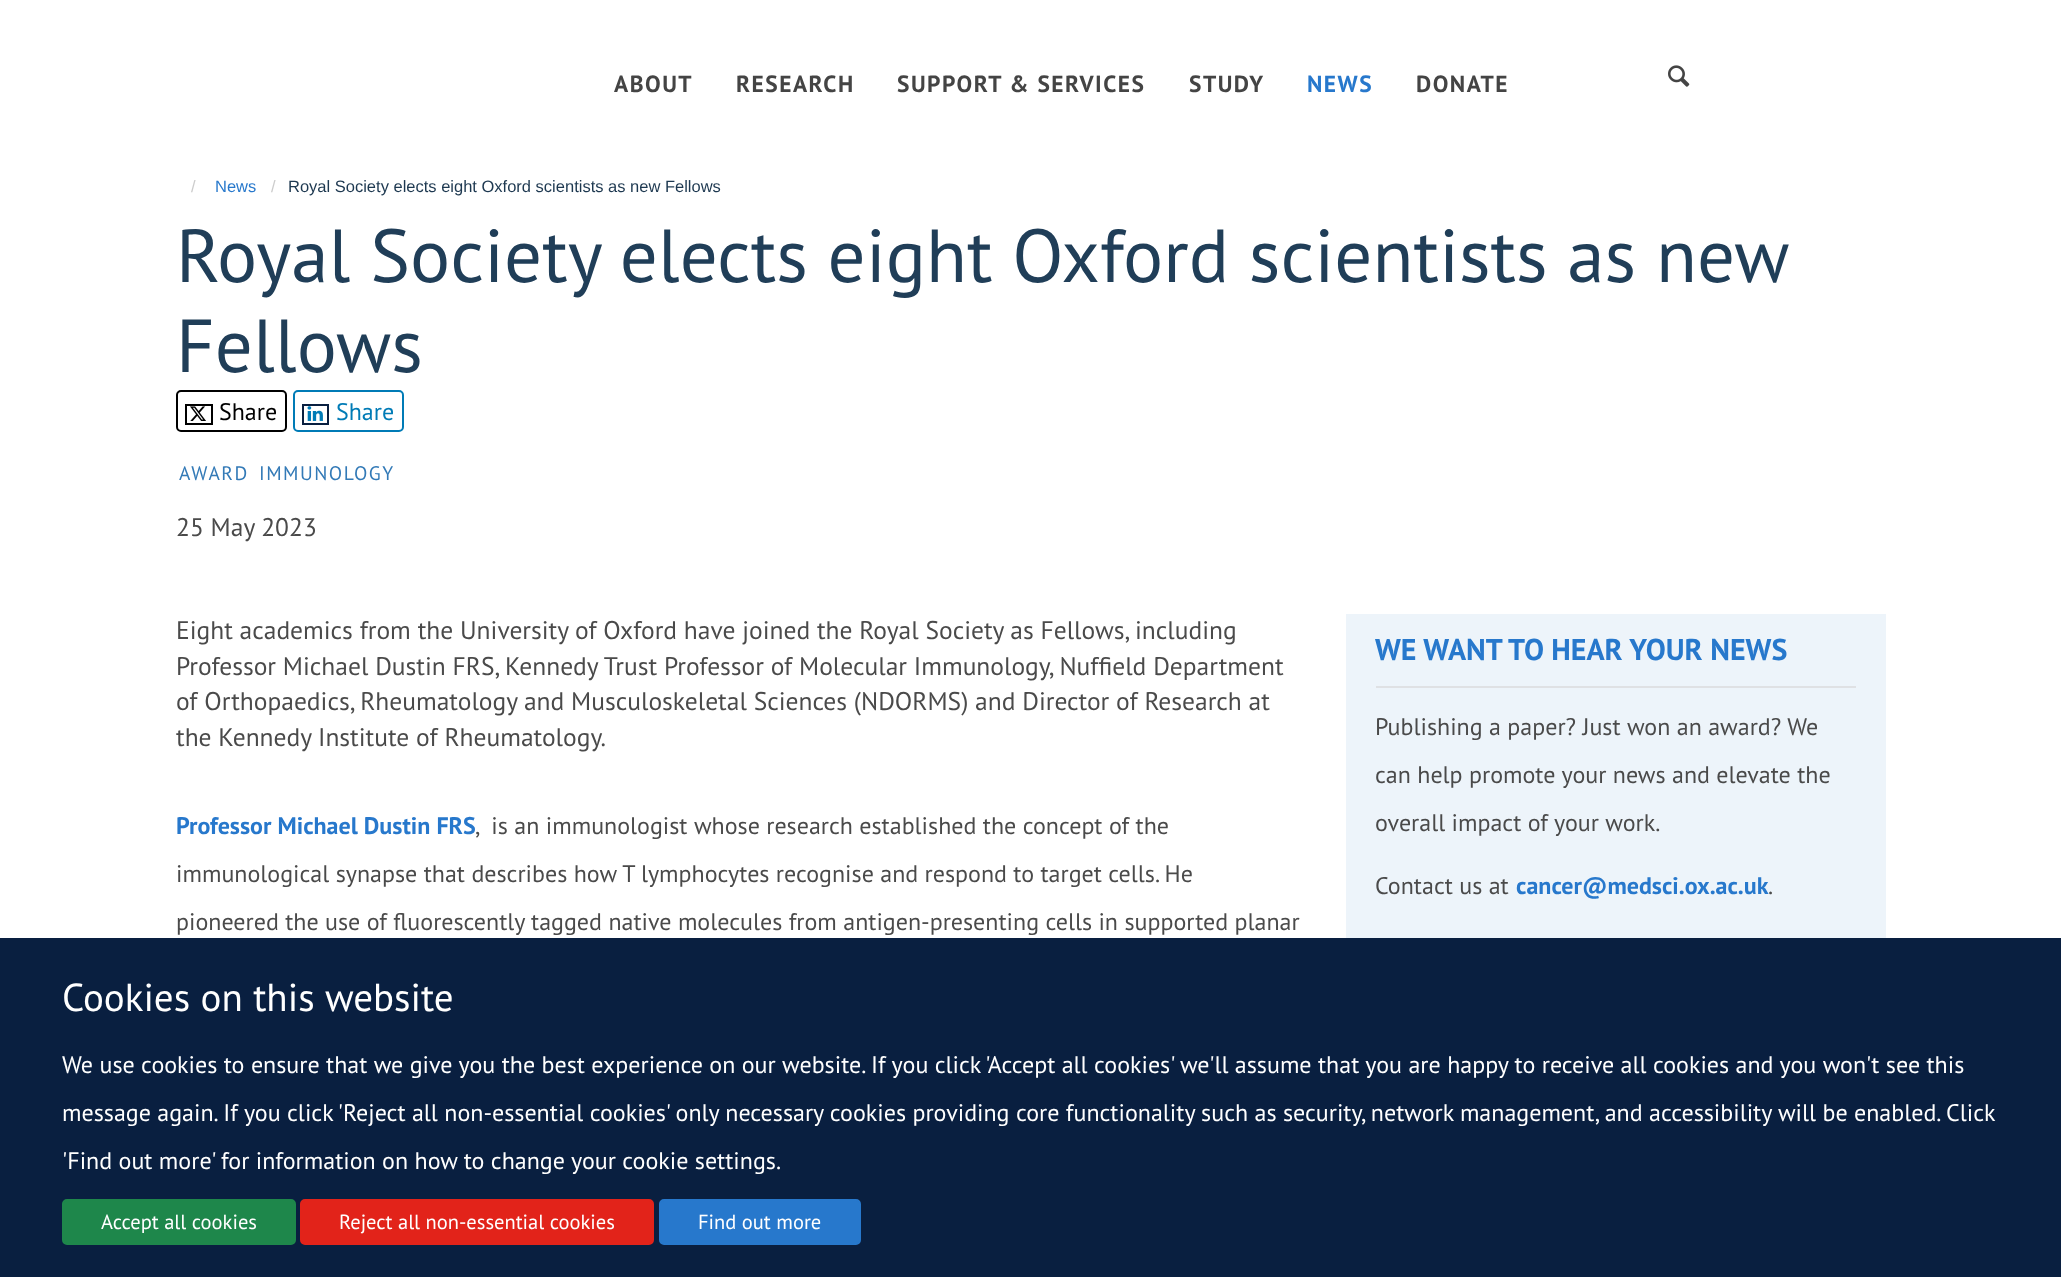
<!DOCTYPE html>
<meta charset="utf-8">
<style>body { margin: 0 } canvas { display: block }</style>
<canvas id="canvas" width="2061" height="1277"></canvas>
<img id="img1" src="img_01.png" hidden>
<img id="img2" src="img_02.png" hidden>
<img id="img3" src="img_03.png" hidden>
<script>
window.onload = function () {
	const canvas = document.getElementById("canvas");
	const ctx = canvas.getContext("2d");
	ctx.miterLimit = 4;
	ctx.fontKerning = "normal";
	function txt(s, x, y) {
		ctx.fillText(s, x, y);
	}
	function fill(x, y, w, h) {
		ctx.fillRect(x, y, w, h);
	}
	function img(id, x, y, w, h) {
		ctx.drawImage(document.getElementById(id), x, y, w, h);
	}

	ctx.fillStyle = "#FFFFFF";
	fill(0, 0, 2061, 1277);
	img("img1", 1668, 65, 22, 22);
	ctx.beginPath();
	ctx.roundRect(177, 391, 109, 40, 4);
	ctx.strokeStyle = "#000000";
	ctx.lineWidth = 2;
	ctx.stroke();
	ctx.strokeRect(186, 405, 26, 19);
	img("img2", 190, 406, 16, 15);
	ctx.beginPath();
	ctx.roundRect(294, 391, 109, 40, 4);
	ctx.strokeStyle = "#007BB6";
	ctx.stroke();
	ctx.strokeStyle = "#091F40";
	ctx.strokeRect(303, 405, 25, 19);
	img("img3", 307, 406, 16, 15);
	ctx.fillStyle = "#EDF4FA";
	fill(1346, 614, 540, 324);
	ctx.fillStyle = "#DFE1E4";
	fill(1376, 686, 480, 2);
	ctx.fillStyle = "#091F40";
	fill(0, 938, 2061, 339);
	ctx.fillStyle = "#1E874B";
	ctx.beginPath();
	ctx.roundRect(63, 1200, 232, 44, 4);
	ctx.fill();
	ctx.strokeStyle = "#1E874B";
	ctx.stroke();
	ctx.fillStyle = "#E2231A";
	ctx.beginPath();
	ctx.roundRect(301, 1200, 352, 44, 4);
	ctx.fill();
	ctx.strokeStyle = "#E2231A";
	ctx.stroke();
	ctx.fillStyle = "#2778CC";
	ctx.beginPath();
	ctx.roundRect(660, 1200, 200, 44, 4);
	ctx.fill();
	ctx.strokeStyle = "#2778CC";
	ctx.stroke();
	ctx.letterSpacing = "1.5px";
	ctx.font = "bold 23.4px PT Sans";
	ctx.fillStyle = "#444444";
	txt("ABOUT", 614, 92);
	txt("RESEARCH", 736, 92);
	txt("SUPPORT & SERVICES", 897, 92);
	txt("STUDY", 1189, 92);
	ctx.fillStyle = "#2778CC";
	txt("NEWS", 1307, 92);
	ctx.fillStyle = "#444444";
	txt("DONATE", 1416, 92);
	ctx.letterSpacing = "0px";
	ctx.font = "16.5px Liberation Sans";
	ctx.fillStyle = "#CCCCCC";
	txt("/", 191, 192);
	ctx.fillStyle = "#2778CC";
	txt("News", 215, 192);
	ctx.fillStyle = "#CCCCCC";
	txt("/", 271, 192);
	ctx.fillStyle = "#1D3850";
	txt("Royal Society elects eight Oxford scientists as new Fellows", 288, 192);
	ctx.wordSpacing = "-0.25px";
	ctx.font = "75px PT Sans";
	ctx.fillStyle = "#203E58";
	txt("Royal Society elects eight Oxford scientists as new", 176, 282);
	ctx.wordSpacing = "0px";
	txt("Fellows", 176, 372);
	ctx.font = "24px PT Sans";
	ctx.fillStyle = "#000000";
	txt("Share", 219, 420);
	ctx.fillStyle = "#007BB6";
	txt("Share", 336, 420);
	ctx.letterSpacing = "1.5px";
	ctx.font = "19.5px PT Sans";
	ctx.fillStyle = "#337AB7";
	txt("AWARD", 179, 480);
	txt("IMMUNOLOGY", 259, 480);
	ctx.letterSpacing = "0px";
	ctx.font = "25.5px PT Sans";
	ctx.fillStyle = "#4A4A4A";
	txt("25 May 2023", 176, 536);
	txt("Eight academics from the University of Oxford have joined the Royal Society as Fellows, including", 176, 639);
	txt("Professor Michael Dustin FRS, Kennedy Trust Professor of Molecular Immunology, Nuffield Department", 176, 675);
	txt("of Orthopaedics, Rheumatology and Musculoskeletal Sciences (NDORMS) and Director of Research at", 176, 710);
	txt("the Kennedy Institute of Rheumatology.", 176, 746);
	ctx.font = "bold 24px PT Sans";
	ctx.fillStyle = "#2778CC";
	txt("Professor Michael Dustin FRS", 176, 834);
	ctx.font = "24px PT Sans";
	ctx.fillStyle = "#4A4A4A";
	txt(",  is an immunologist whose research established the concept of the", 475, 834);
	txt("immunological synapse that describes how T lymphocytes recognise and respond to target cells. He", 176, 882);
	txt("pioneered the use of fluorescently tagged native molecules from antigen-presenting cells in supported planar", 176, 930);
	ctx.font = "bold 30px PT Sans";
	ctx.fillStyle = "#2778CC";
	txt("WE WANT TO HEAR YOUR NEWS", 1375, 660);
	ctx.font = "24px PT Sans";
	ctx.fillStyle = "#4A4A4A";
	txt("Publishing a paper? Just won an award? We", 1375, 735);
	txt("can help promote your news and elevate the", 1375, 783);
	txt("overall impact of your work.", 1375, 831);
	txt("Contact us at", 1375, 894);
	ctx.font = "bold 24px PT Sans";
	ctx.fillStyle = "#2778CC";
	txt("cancer@medsci.ox.ac.uk", 1516, 894);
	ctx.font = "24px PT Sans";
	ctx.fillStyle = "#4A4A4A";
	txt(".", 1768, 894);
	ctx.font = "39px PT Sans";
	ctx.fillStyle = "#FFFFFF";
	txt("Cookies on this website", 62, 1011);
	ctx.font = "24px PT Sans";
	txt("We use cookies to ensure that we give you the best experience on our website. If you click 'Accept all cookies' we'll assume that you are happy to receive all cookies and you won't see this", 62, 1073);
	txt("message again. If you click 'Reject all non-essential cookies' only necessary cookies providing core functionality such as security, network management, and accessibility will be enabled. Click", 62, 1121);
	txt("'Find out more' for information on how to change your cookie settings.", 62, 1169);
	ctx.font = "20.5px PT Sans";
	txt("Accept all cookies", 101, 1229);
	txt("Reject all non-essential cookies", 339, 1229);
	txt("Find out more", 698, 1229);
};
</script>
